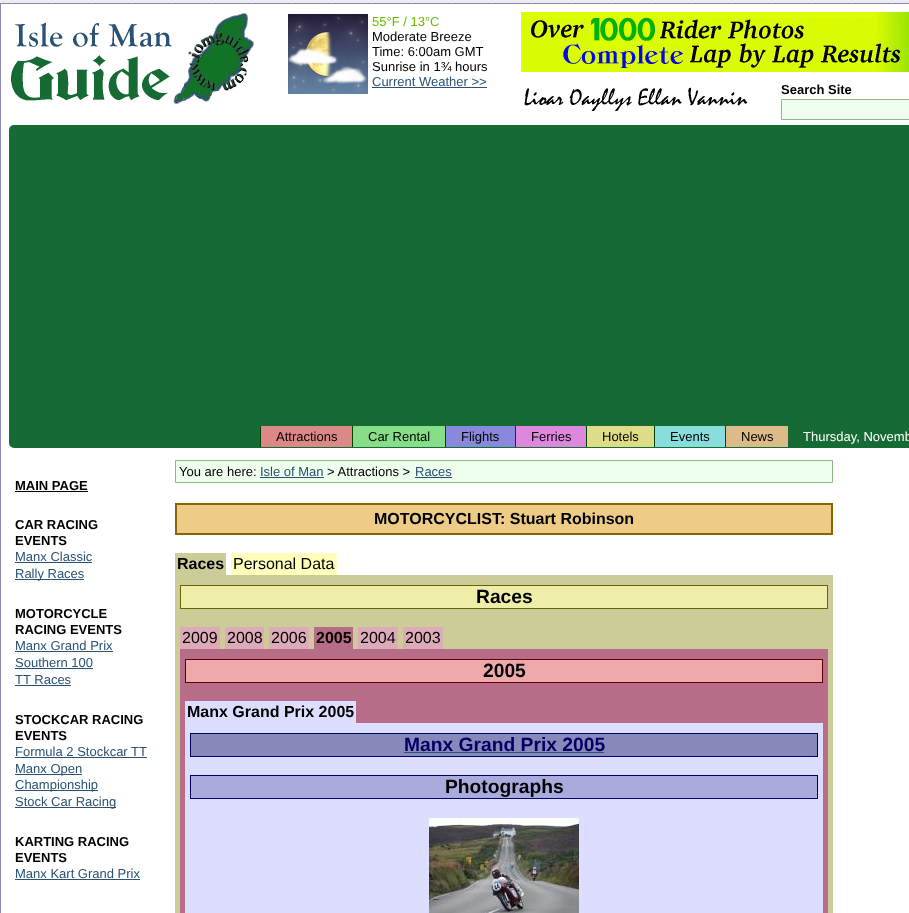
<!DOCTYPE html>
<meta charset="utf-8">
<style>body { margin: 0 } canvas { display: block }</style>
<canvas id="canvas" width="909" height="913"></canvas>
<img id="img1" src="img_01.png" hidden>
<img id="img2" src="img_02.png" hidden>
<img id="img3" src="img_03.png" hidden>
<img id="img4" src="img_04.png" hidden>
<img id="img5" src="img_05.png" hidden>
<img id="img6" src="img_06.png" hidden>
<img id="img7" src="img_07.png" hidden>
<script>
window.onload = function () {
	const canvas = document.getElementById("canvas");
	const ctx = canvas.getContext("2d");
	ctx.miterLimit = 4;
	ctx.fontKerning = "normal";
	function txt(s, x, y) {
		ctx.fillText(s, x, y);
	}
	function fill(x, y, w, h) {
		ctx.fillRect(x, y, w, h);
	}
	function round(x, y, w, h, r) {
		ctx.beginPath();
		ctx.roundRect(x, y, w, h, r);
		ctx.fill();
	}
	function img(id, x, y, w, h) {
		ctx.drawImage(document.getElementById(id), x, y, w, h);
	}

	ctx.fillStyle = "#FFFFFF";
	fill(0, 0, 909, 913);
	img("img1", 0, 0, 909, 3);
	ctx.strokeStyle = "#8888BB";
	ctx.strokeRect(0.5, 3.5, 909, 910);
	img("img2", 11, 22, 161, 79);
	img("img3", 173, 13, 81, 91);
	img("img4", 288, 14, 80, 80);
	ctx.fillStyle = "#2A5274";
	fill(372, 87, 115, 1);
	img("img5", 521, 12, 388, 60);
	img("img6", 524, 87, 224, 24);
	ctx.fillStyle = "#EEFFEE";
	ctx.beginPath();
	ctx.rect(781.5, 99.5, 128, 20);
	ctx.fill();
	ctx.strokeStyle = "#88BB88";
	ctx.stroke();
	ctx.fillStyle = "#166A34";
	round(9, 125, 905, 323, 5);
	ctx.fillStyle = "#DD8888";
	fill(261, 426, 91, 21);
	ctx.fillStyle = "#004400";
	fill(260, 426, 1, 21);
	ctx.fillStyle = "#88DD88";
	fill(353, 426, 92, 21);
	ctx.fillStyle = "#004400";
	fill(352, 426, 1, 21);
	ctx.fillStyle = "#8888DD";
	fill(446, 426, 69, 21);
	ctx.fillStyle = "#004400";
	fill(445, 426, 1, 21);
	ctx.fillStyle = "#DD88DD";
	fill(516, 426, 70, 21);
	ctx.fillStyle = "#004400";
	fill(515, 426, 1, 21);
	ctx.fillStyle = "#DDDD88";
	fill(587, 426, 67, 21);
	ctx.fillStyle = "#004400";
	fill(586, 426, 1, 21);
	ctx.fillStyle = "#88DDDD";
	fill(655, 426, 70, 21);
	ctx.fillStyle = "#004400";
	fill(654, 426, 1, 21);
	ctx.fillStyle = "#DDBB88";
	fill(726, 426, 62, 21);
	ctx.fillStyle = "#004400";
	fill(725, 426, 1, 21);
	ctx.fillStyle = "#000000";
	fill(15, 491, 73, 1);
	ctx.fillStyle = "#2A5274";
	fill(15, 562, 77, 1);
	fill(15, 579, 69, 1);
	fill(15, 651, 98, 1);
	fill(15, 668, 78, 1);
	fill(15, 685, 56, 1);
	fill(15, 757, 132, 1);
	fill(15, 774, 67, 1);
	fill(15, 790, 83, 1);
	fill(15, 807, 101, 1);
	fill(15, 879, 125, 1);
	ctx.fillStyle = "#EEFFEE";
	ctx.beginPath();
	ctx.rect(175.5, 460.5, 657, 22);
	ctx.fill();
	ctx.stroke();
	ctx.fillStyle = "#2A5274";
	fill(260, 477, 64, 1);
	fill(415, 477, 37, 1);
	ctx.fillStyle = "#886600";
	fill(175, 503, 658, 32);
	ctx.fillStyle = "#EECC88";
	fill(177, 505, 654, 28);
	ctx.fillStyle = "#CCCC99";
	fill(175, 553, 51, 22);
	ctx.fillStyle = "#FFFFBB";
	fill(231, 553, 106, 22);
	ctx.fillStyle = "#CCCC99";
	fill(175, 575, 658, 10);
	fill(175, 585, 5, 328);
	fill(180, 609, 648, 40);
	ctx.fillStyle = "#666600";
	fill(180, 585, 648, 24);
	ctx.fillStyle = "#EEEEAA";
	fill(181, 586, 646, 22);
	ctx.fillStyle = "#DDAAB8";
	fill(180, 627, 40, 22);
	fill(225, 627, 39, 22);
	fill(269, 627, 40, 22);
	ctx.fillStyle = "#B76C87";
	fill(314, 627, 39, 22);
	ctx.fillStyle = "#DDAAB8";
	fill(358, 627, 40, 22);
	fill(403, 627, 40, 22);
	ctx.fillStyle = "#B76C87";
	fill(180, 649, 648, 10);
	fill(180, 659, 5, 254);
	fill(185, 683, 638, 40);
	ctx.fillStyle = "#660000";
	fill(185, 659, 638, 24);
	ctx.fillStyle = "#EEAAAA";
	fill(186, 660, 636, 22);
	ctx.fillStyle = "#DDDDFF";
	fill(185, 701, 171, 22);
	fill(185, 723, 638, 10);
	fill(185, 733, 5, 180);
	fill(190, 757, 628, 156);
	ctx.fillStyle = "#000066";
	fill(190, 733, 628, 24);
	ctx.fillStyle = "#8888BB";
	fill(191, 734, 626, 22);
	ctx.fillStyle = "#2A5274";
	fill(404, 752, 200, 1);
	ctx.fillStyle = "#000066";
	fill(190, 775, 628, 24);
	ctx.fillStyle = "#AAAADD";
	fill(191, 776, 626, 22);
	img("img7", 429, 818, 150, 95);
	ctx.fillStyle = "#DDDDFF";
	fill(818, 733, 5, 180);
	ctx.fillStyle = "#B76C87";
	fill(823, 659, 5, 254);
	ctx.fillStyle = "#CCCC99";
	fill(828, 585, 5, 328);
	ctx.font = "13px Liberation Sans";
	ctx.fillStyle = "#66BB00";
	txt("55°F / 13°C", 372, 26);
	ctx.fillStyle = "#000000";
	txt("Moderate Breeze", 372, 41);
	txt("Time: 6:00am GMT", 372, 56);
	txt("Sunrise in 1¾ hours", 372, 71);
	ctx.fillStyle = "#2A5274";
	txt("Current Weather >>", 372, 86);
	ctx.font = "bold 13px Liberation Sans";
	ctx.fillStyle = "#000000";
	txt("Search Site", 781, 94);
	ctx.font = "13px Liberation Sans";
	txt("Attractions", 276, 441);
	txt("Car Rental", 368, 441);
	txt("Flights", 461, 441);
	txt("Ferries", 531, 441);
	txt("Hotels", 602, 441);
	txt("Events", 670, 441);
	txt("News", 741, 441);
	ctx.fillStyle = "#FFFFFF";
	txt("Thursday, Novemb", 803, 441);
	ctx.font = "bold 13px Liberation Sans";
	ctx.fillStyle = "#000000";
	txt("MAIN PAGE", 15, 490);
	txt("CAR RACING", 15, 529);
	txt("EVENTS", 15, 545);
	ctx.font = "13px Liberation Sans";
	ctx.fillStyle = "#2A5274";
	txt("Manx Classic", 15, 561);
	txt("Rally Races", 15, 578);
	ctx.font = "bold 13px Liberation Sans";
	ctx.fillStyle = "#000000";
	txt("MOTORCYCLE", 15, 618);
	txt("RACING EVENTS", 15, 634);
	ctx.font = "13px Liberation Sans";
	ctx.fillStyle = "#2A5274";
	txt("Manx Grand Prix", 15, 650);
	txt("Southern 100", 15, 667);
	txt("TT Races", 15, 684);
	ctx.font = "bold 13px Liberation Sans";
	ctx.fillStyle = "#000000";
	txt("STOCKCAR RACING", 15, 724);
	txt("EVENTS", 15, 740);
	ctx.font = "13px Liberation Sans";
	ctx.fillStyle = "#2A5274";
	txt("Formula 2 Stockcar TT", 15, 756);
	txt("Manx Open", 15, 773);
	txt("Championship", 15, 789);
	txt("Stock Car Racing", 15, 806);
	ctx.font = "bold 13px Liberation Sans";
	ctx.fillStyle = "#000000";
	txt("KARTING RACING", 15, 846);
	txt("EVENTS", 15, 862);
	ctx.font = "13px Liberation Sans";
	ctx.fillStyle = "#2A5274";
	txt("Manx Kart Grand Prix", 15, 878);
	ctx.fillStyle = "#000000";
	txt("You are here:", 179, 476);
	ctx.fillStyle = "#2A5274";
	txt("Isle of Man", 260, 476);
	ctx.fillStyle = "#000000";
	txt("> Attractions >", 327, 476);
	ctx.fillStyle = "#2A5274";
	txt("Races", 415, 476);
	ctx.font = "bold 16px Liberation Sans";
	ctx.fillStyle = "#000000";
	txt("MOTORCYCLIST: Stuart Robinson", 374, 524);
	txt("Races", 177, 569);
	ctx.font = "16px Liberation Sans";
	txt("Personal Data", 233, 569);
	ctx.font = "bold 19.25px Liberation Sans";
	txt("Races", 476, 603);
	ctx.font = "16px Liberation Sans";
	txt("2009", 182, 643);
	txt("2008", 227, 643);
	txt("2006", 271, 643);
	ctx.font = "bold 16px Liberation Sans";
	txt("2005", 316, 643);
	ctx.font = "16px Liberation Sans";
	txt("2004", 360, 643);
	txt("2003", 405, 643);
	ctx.font = "bold 19.25px Liberation Sans";
	txt("2005", 483, 677);
	ctx.font = "bold 16px Liberation Sans";
	txt("Manx Grand Prix 2005", 187, 717);
	ctx.font = "bold 19.25px Liberation Sans";
	ctx.fillStyle = "#000066";
	txt("Manx Grand Prix 2005", 404, 751);
	ctx.fillStyle = "#000000";
	txt("Photographs", 445, 793);
};
</script>
